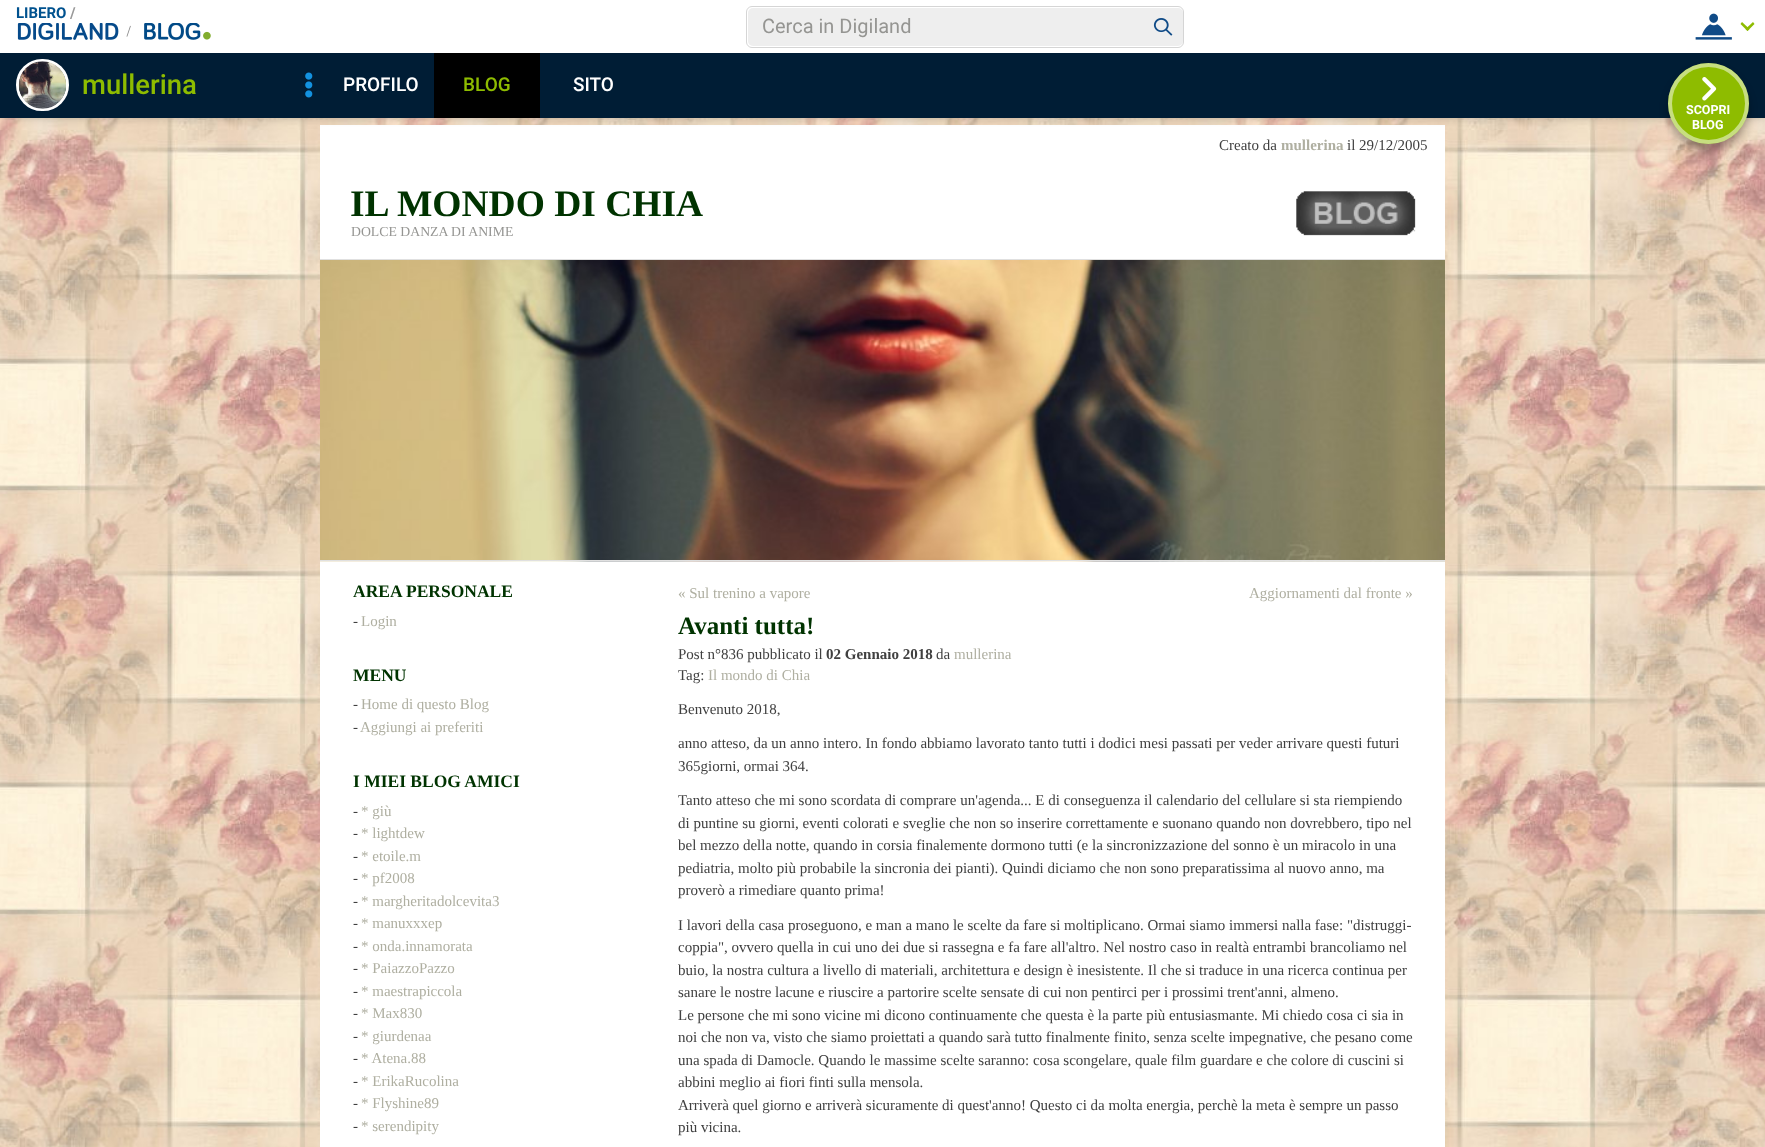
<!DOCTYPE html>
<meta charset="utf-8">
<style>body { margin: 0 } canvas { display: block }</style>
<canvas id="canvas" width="1765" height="1147"></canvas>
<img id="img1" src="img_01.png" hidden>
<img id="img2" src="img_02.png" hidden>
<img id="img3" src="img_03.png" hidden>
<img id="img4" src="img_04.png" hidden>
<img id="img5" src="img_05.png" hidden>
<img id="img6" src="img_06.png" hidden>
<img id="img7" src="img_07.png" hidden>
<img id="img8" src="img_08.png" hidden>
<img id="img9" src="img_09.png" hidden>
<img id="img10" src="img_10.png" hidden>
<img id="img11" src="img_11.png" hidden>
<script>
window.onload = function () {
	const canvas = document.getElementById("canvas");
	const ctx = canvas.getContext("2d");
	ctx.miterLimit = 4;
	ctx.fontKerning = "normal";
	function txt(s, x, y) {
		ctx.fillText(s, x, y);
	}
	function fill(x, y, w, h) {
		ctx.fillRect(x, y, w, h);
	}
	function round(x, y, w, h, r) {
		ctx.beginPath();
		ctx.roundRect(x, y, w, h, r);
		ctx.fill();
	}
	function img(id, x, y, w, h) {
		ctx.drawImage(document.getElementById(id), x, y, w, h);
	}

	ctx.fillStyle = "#FFFFFF";
	fill(0, 0, 1765, 1147);
	img("img1", 0, 118, 1765, 1029);
	fill(320, 125, 1125, 1022);
	ctx.fillStyle = "rgba(0, 0, 0, 0.2)";
	ctx.filter = "blur(4px)";
	ctx.beginPath();
	ctx.rect(0, 0, 1765, 118);
	ctx.fill();
	ctx.filter = "none";
	ctx.fillStyle = "#FFFFFF";
	fill(0, 0, 1765, 53);
	ctx.fillStyle = "#EEEEEE";
	round(748, 8, 435, 38, 5);
	ctx.beginPath();
	ctx.roundRect(746.5, 6.5, 437, 41, 5.5);
	ctx.strokeStyle = "#D5D5D5";
	ctx.stroke();
	img("img2", 1153, 18, 20, 18);
	img("img3", 1695, 13, 37, 27);
	ctx.fillStyle = "#8EBC00";
	ctx.beginPath();
	ctx.moveTo(1753, 22);
	ctx.lineTo(1754.5, 24);
	ctx.lineTo(1747.5, 31);
	ctx.lineTo(1745.5, 29);
	ctx.closePath();
	ctx.fill();
	ctx.beginPath();
	ctx.moveTo(1742, 22);
	ctx.lineTo(1749.5, 29);
	ctx.lineTo(1747.5, 31);
	ctx.lineTo(1740.5, 24);
	ctx.closePath();
	ctx.fill();
	img("img4", 17, 23, 102, 17);
	img("img5", 126, 25, 5, 12);
	img("img6", 144, 23, 67, 17);
	ctx.fillStyle = "#001D35";
	fill(0, 53, 1765, 65);
	ctx.beginPath();
	ctx.roundRect(17.5, 60.5, 50, 49, 24.5);
	ctx.strokeStyle = "#FFFFFF";
	ctx.lineWidth = 3;
	ctx.stroke();
	img("img7", 18, 61, 48, 48);
	img("img8", 305, 72, 8, 26);
	ctx.fillStyle = "#000000";
	fill(434, 53, 106, 65);
	ctx.fillStyle = "rgba(0, 0, 0, 0.3)";
	ctx.filter = "blur(4px)";
	ctx.beginPath();
	ctx.roundRect(1668, 70, 81, 81, 40.5);
	ctx.fill();
	ctx.filter = "none";
	ctx.fillStyle = "#8EBC00";
	ctx.beginPath();
	ctx.arc(1708.5, 103.5, 40.5, 0, Math.PI * 2);
	ctx.fill();
	ctx.beginPath();
	ctx.arc(1708.5, 103.5, 38.5, 0, Math.PI * 2);
	ctx.strokeStyle = "rgba(255, 255, 255, 0.5)";
	ctx.lineWidth = 4;
	ctx.stroke();
	img("img9", 1702, 77, 15, 24);
	img("img10", 1296, 191, 120, 45);
	img("img11", 320, 260, 1125, 302);
	ctx.fillStyle = "#E0E0E0";
	fill(320, 259, 1125, 1);
	fill(320, 560, 1125, 1);
	ctx.font = "bold 15px Roboto";
	ctx.fillStyle = "#00528F";
	txt("LIBERO", 16, 18);
	ctx.fillStyle = "#999999";
	txt("/", 70, 18);
	ctx.font = "20px Roboto";
	ctx.fillStyle = "#959592";
	txt("Cerca in Digiland", 762, 33);
	ctx.font = "500 27.5px Roboto";
	ctx.fillStyle = "#8EBC00";
	txt("mullerina", 82, 94);
	ctx.font = "500 19px Roboto";
	ctx.fillStyle = "#FFFFFF";
	txt("PROFILO", 343, 91);
	ctx.fillStyle = "#8EBC00";
	txt("BLOG", 463, 91);
	ctx.fillStyle = "#FFFFFF";
	txt("SITO", 573, 91);
	ctx.font = "bold 12.5px Roboto";
	txt("SCOPRI", 1686, 114);
	txt("BLOG", 1692, 129);
	ctx.font = "15px Liberation Serif";
	ctx.fillStyle = "#404040";
	txt("Creato da", 1219, 150);
	ctx.font = "bold 15px Liberation Serif";
	ctx.fillStyle = "#AFAFA1";
	txt("mullerina", 1281, 150);
	ctx.font = "15px Liberation Serif";
	ctx.fillStyle = "#404040";
	txt("il 29/12/2005", 1347, 150);
	ctx.font = "bold 37.5px Liberation Serif";
	ctx.fillStyle = "#003300";
	txt("IL MONDO DI CHIA", 350, 216);
	ctx.font = "13.75px Liberation Serif";
	ctx.fillStyle = "#959592";
	txt("DOLCE DANZA DI ANIME", 351, 236);
	ctx.font = "bold 17.5px Liberation Serif";
	ctx.fillStyle = "#003300";
	txt("AREA PERSONALE", 353, 597);
	ctx.font = "15px Liberation Serif";
	ctx.fillStyle = "#404040";
	txt("-", 353, 626);
	ctx.fillStyle = "#AFAFA1";
	txt("Login", 361, 626);
	ctx.font = "bold 17.5px Liberation Serif";
	ctx.fillStyle = "#003300";
	txt("MENU", 353, 681);
	ctx.font = "15px Liberation Serif";
	ctx.fillStyle = "#404040";
	txt("-", 353, 709);
	ctx.fillStyle = "#AFAFA1";
	txt("Home di questo Blog", 361, 709);
	ctx.fillStyle = "#404040";
	txt("-", 353, 732);
	ctx.fillStyle = "#AFAFA1";
	txt("Aggiungi ai preferiti", 360, 732);
	ctx.font = "bold 17.5px Liberation Serif";
	ctx.fillStyle = "#003300";
	txt("I MIEI BLOG AMICI", 353, 787);
	ctx.font = "15px Liberation Serif";
	ctx.fillStyle = "#404040";
	txt("-", 353, 816);
	ctx.fillStyle = "#AFAFA1";
	txt("* giù", 361, 816);
	ctx.fillStyle = "#404040";
	txt("-", 353, 838);
	ctx.fillStyle = "#AFAFA1";
	txt("* lightdew", 361, 838);
	ctx.fillStyle = "#404040";
	txt("-", 353, 861);
	ctx.fillStyle = "#AFAFA1";
	txt("* etoile.m", 361, 861);
	ctx.fillStyle = "#404040";
	txt("-", 353, 883);
	ctx.fillStyle = "#AFAFA1";
	txt("* pf2008", 361, 883);
	ctx.fillStyle = "#404040";
	txt("-", 353, 906);
	ctx.fillStyle = "#AFAFA1";
	txt("* margheritadolcevita3", 361, 906);
	ctx.fillStyle = "#404040";
	txt("-", 353, 928);
	ctx.fillStyle = "#AFAFA1";
	txt("* manuxxxep", 361, 928);
	ctx.fillStyle = "#404040";
	txt("-", 353, 951);
	ctx.fillStyle = "#AFAFA1";
	txt("* onda.innamorata", 361, 951);
	ctx.fillStyle = "#404040";
	txt("-", 353, 973);
	ctx.fillStyle = "#AFAFA1";
	txt("* PaiazzoPazzo", 361, 973);
	ctx.fillStyle = "#404040";
	txt("-", 353, 996);
	ctx.fillStyle = "#AFAFA1";
	txt("* maestrapiccola", 361, 996);
	ctx.fillStyle = "#404040";
	txt("-", 353, 1018);
	ctx.fillStyle = "#AFAFA1";
	txt("* Max830", 361, 1018);
	ctx.fillStyle = "#404040";
	txt("-", 353, 1041);
	ctx.fillStyle = "#AFAFA1";
	txt("* giurdenaa", 361, 1041);
	ctx.fillStyle = "#404040";
	txt("-", 353, 1063);
	ctx.fillStyle = "#AFAFA1";
	txt("* Atena.88", 361, 1063);
	ctx.fillStyle = "#404040";
	txt("-", 353, 1086);
	ctx.fillStyle = "#AFAFA1";
	txt("* ErikaRucolina", 361, 1086);
	ctx.fillStyle = "#404040";
	txt("-", 353, 1108);
	ctx.fillStyle = "#AFAFA1";
	txt("* Flyshine89", 361, 1108);
	ctx.fillStyle = "#404040";
	txt("-", 353, 1131);
	ctx.fillStyle = "#AFAFA1";
	txt("* serendipity", 361, 1131);
	txt("« Sul trenino a vapore", 678, 598);
	txt("Aggiornamenti dal fronte »", 1249, 598);
	ctx.font = "bold 25px Liberation Serif";
	ctx.fillStyle = "#003300";
	txt("Avanti tutta!", 678, 634);
	ctx.font = "15px Liberation Serif";
	ctx.fillStyle = "#404040";
	txt("Post n°836 pubblicato il", 678, 659);
	ctx.font = "bold 15px Liberation Serif";
	txt("02 Gennaio 2018", 826, 659);
	ctx.font = "15px Liberation Serif";
	txt("da", 936, 659);
	ctx.fillStyle = "#AFAFA1";
	txt("mullerina", 954, 659);
	ctx.save();
	ctx.beginPath();
	ctx.rect(678, 581, 735, 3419);
	ctx.clip();
	ctx.fillStyle = "#404040";
	txt("Tag:", 678, 680);
	ctx.restore();
	txt("Il mondo di Chia", 708, 680);
	ctx.fillStyle = "#404040";
	txt("Benvenuto 2018,", 678, 714);
	txt("anno atteso, da un anno intero. In fondo abbiamo lavorato tanto tutti i dodici mesi passati per veder arrivare questi futuri", 678, 748);
	txt("365giorni, ormai 364.", 678, 771);
	ctx.save();
	ctx.beginPath();
	ctx.rect(678, 581, 735, 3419);
	ctx.clip();
	txt("Tanto atteso che mi sono scordata di comprare un'agenda... E di conseguenza il calendario del cellulare si sta riempiendo", 678, 805);
	ctx.restore();
	txt("di puntine su giorni, eventi colorati e sveglie che non so inserire correttamente e suonano quando non dovrebbero, tipo nel", 678, 828);
	txt("bel mezzo della notte, quando in corsia finalemente dormono tutti (e la sincronizzazione del sonno è un miracolo in una", 678, 850);
	txt("pediatria, molto più probabile la sincronia dei pianti). Quindi diciamo che non sono preparatissima al nuovo anno, ma", 678, 873);
	txt("proverò a rimediare quanto prima!", 678, 895);
	txt("I lavori della casa proseguono, e man a mano le scelte da fare si moltiplicano. Ormai siamo immersi nalla fase: \"distruggi-", 678, 930);
	txt("coppia\", ovvero quella in cui uno dei due si rassegna e fa fare all'altro. Nel nostro caso in realtà entrambi brancoliamo nel", 678, 952);
	txt("buio, la nostra cultura a livello di materiali, architettura e design è inesistente. Il che si traduce in una ricerca continua per", 678, 975);
	txt("sanare le nostre lacune e riuscire a partorire scelte sensate di cui non pentirci per i prossimi trent'anni, almeno.", 678, 997);
	txt("Le persone che mi sono vicine mi dicono continuamente che questa è la parte più entusiasmante. Mi chiedo cosa ci sia in", 678, 1020);
	txt("noi che non va, visto che siamo proiettati a quando sarà tutto finalmente finito, senza scelte impegnative, che pesano come", 678, 1042);
	txt("una spada di Damocle. Quando le massime scelte saranno: cosa scongelare, quale film guardare e che colore di cuscini si", 678, 1065);
	txt("abbini meglio ai fiori finti sulla mensola.", 678, 1087);
	txt("Arriverà quel giorno e arriverà sicuramente di quest'anno! Questo ci da molta energia, perchè la meta è sempre un passo", 678, 1110);
	txt("più vicina.", 678, 1132);
};
</script>
